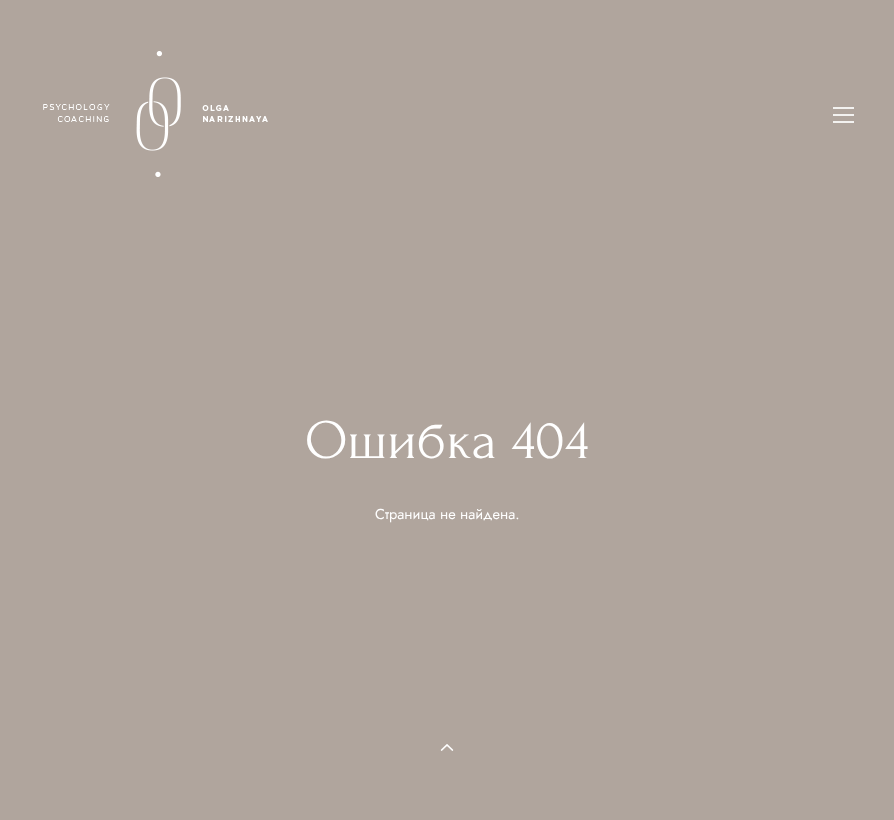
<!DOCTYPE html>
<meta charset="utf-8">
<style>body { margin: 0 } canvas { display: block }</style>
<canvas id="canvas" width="894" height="820"></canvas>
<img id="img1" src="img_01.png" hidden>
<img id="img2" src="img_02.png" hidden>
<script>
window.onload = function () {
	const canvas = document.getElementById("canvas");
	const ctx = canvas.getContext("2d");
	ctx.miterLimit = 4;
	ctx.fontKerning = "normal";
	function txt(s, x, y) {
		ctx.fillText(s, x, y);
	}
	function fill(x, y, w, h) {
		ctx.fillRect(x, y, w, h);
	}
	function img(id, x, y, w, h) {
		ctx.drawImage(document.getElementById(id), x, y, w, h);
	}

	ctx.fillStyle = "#B0A59D";
	fill(0, 0, 894, 820);
	img("img1", 43, 51, 225, 126);
	ctx.fillStyle = "#F3F2F0";
	fill(833, 107, 21, 2);
	fill(833, 114, 21, 2);
	fill(833, 121, 21, 2);
	img("img2", 440, 744, 14, 7);
	ctx.font = "56px Forum";
	ctx.fillStyle = "#FFFFFF";
	txt("Ошибка 404", 305, 458);
	ctx.font = "14.5px Jost";
	txt("Страница не найдена.", 375, 519);
};
</script>
